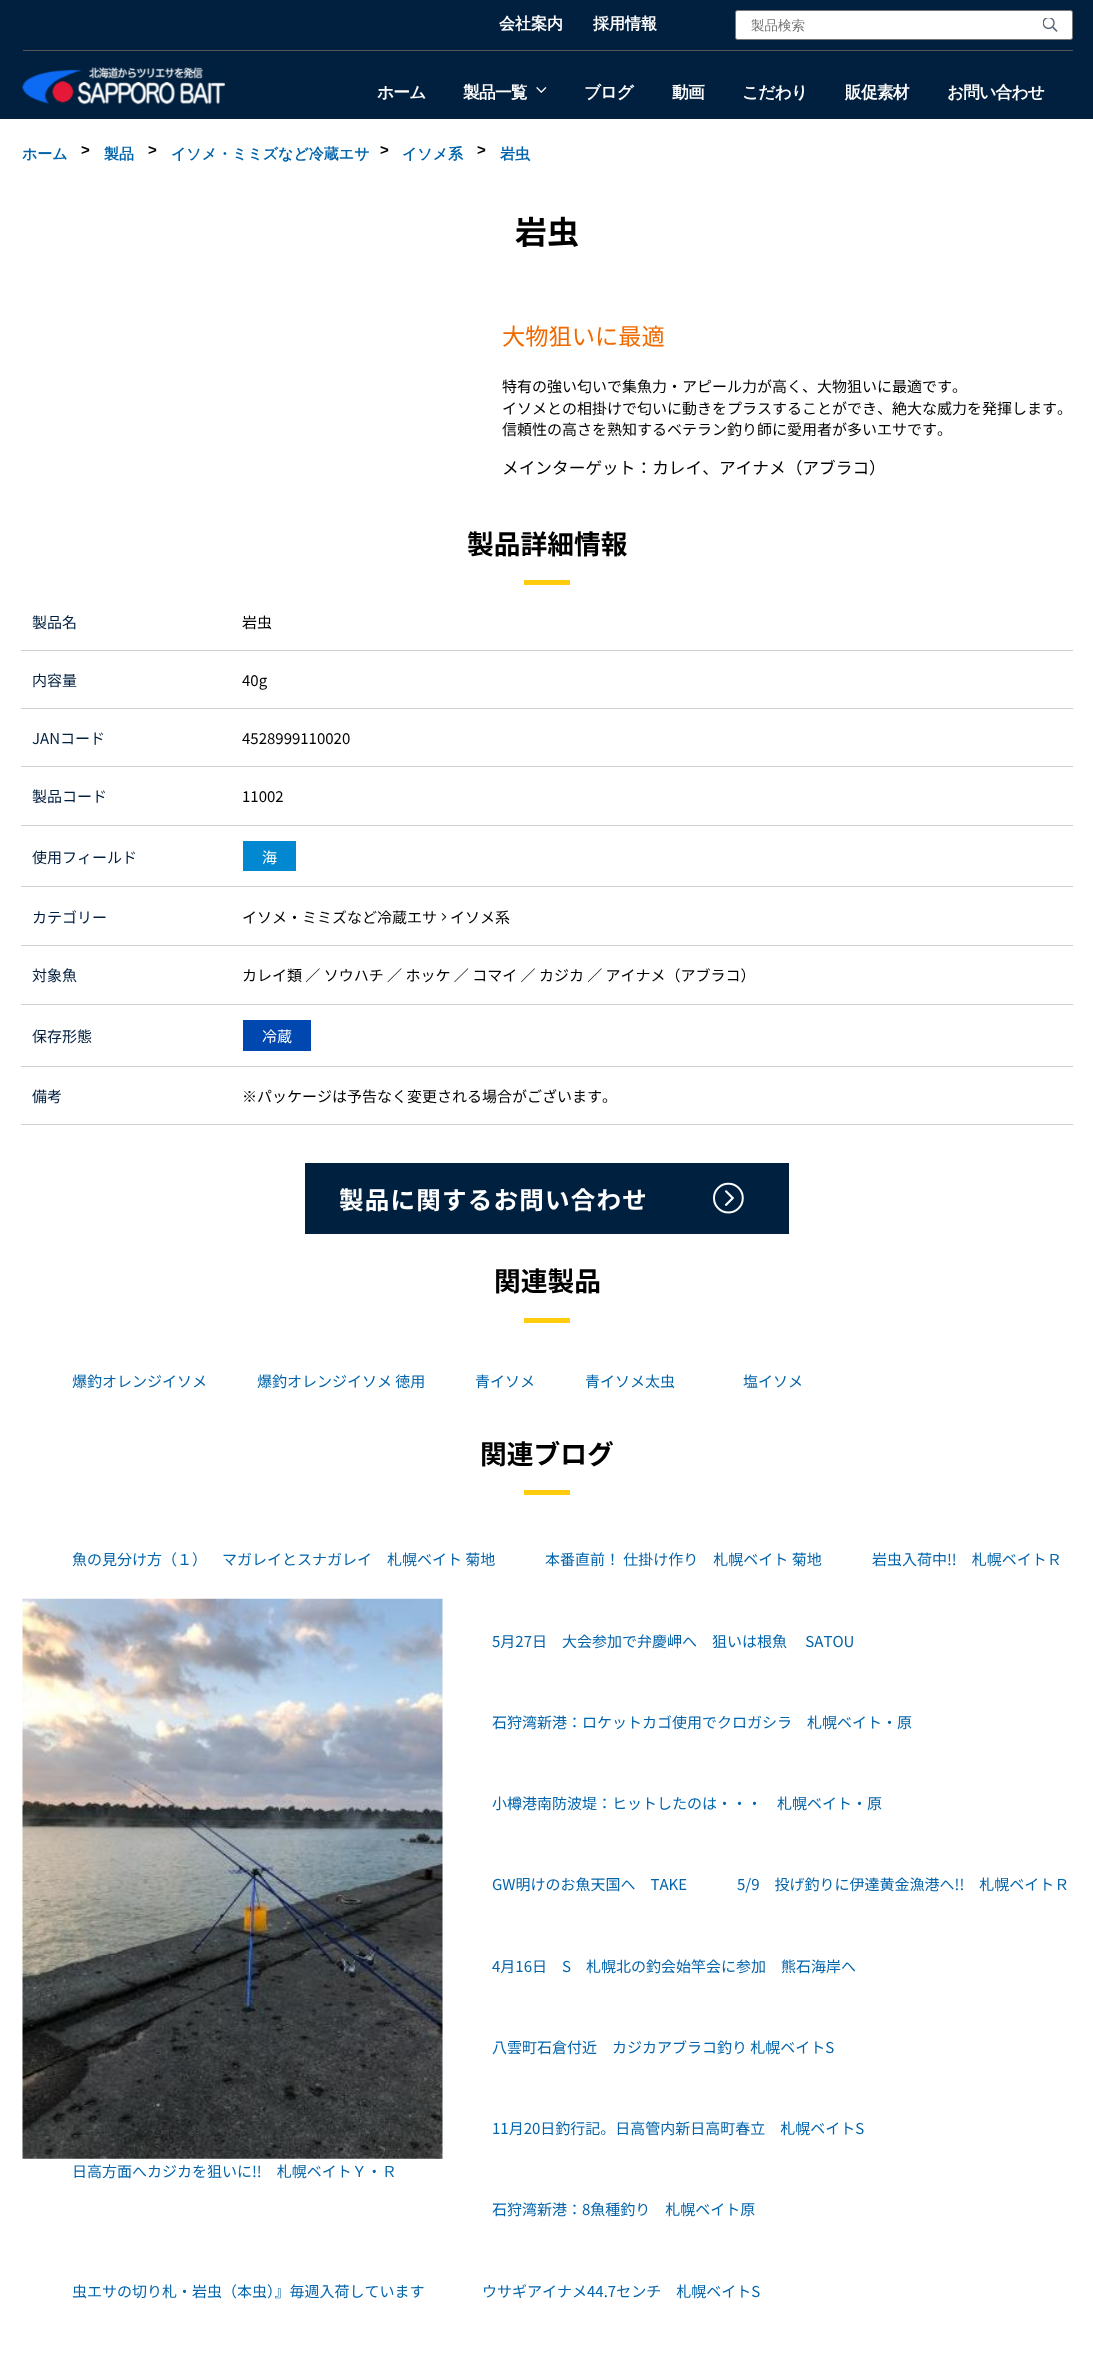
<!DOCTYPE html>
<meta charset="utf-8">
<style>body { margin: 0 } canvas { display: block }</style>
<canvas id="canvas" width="1093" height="2372"></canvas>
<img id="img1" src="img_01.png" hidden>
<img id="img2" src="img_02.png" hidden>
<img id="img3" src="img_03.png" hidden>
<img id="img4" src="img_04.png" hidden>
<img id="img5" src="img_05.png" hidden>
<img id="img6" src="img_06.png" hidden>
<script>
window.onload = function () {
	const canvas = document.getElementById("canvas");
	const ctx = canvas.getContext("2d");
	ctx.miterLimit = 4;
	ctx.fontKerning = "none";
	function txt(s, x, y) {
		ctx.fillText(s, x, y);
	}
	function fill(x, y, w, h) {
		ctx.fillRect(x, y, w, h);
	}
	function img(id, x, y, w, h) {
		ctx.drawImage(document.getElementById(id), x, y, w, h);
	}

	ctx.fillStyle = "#FFFFFF";
	fill(0, 0, 1093, 2372);
	ctx.fillStyle = "#01203F";
	fill(0, 0, 1093, 119);
	ctx.fillStyle = "#555555";
	fill(23, 50, 1050, 1);
	ctx.fillStyle = "#FFFFFF";
	ctx.beginPath();
	ctx.roundRect(735.5, 10.5, 337, 29, 2);
	ctx.fill();
	ctx.strokeStyle = "#767676";
	ctx.stroke();
	img("img1", 1043, 18, 15, 14);
	img("img2", 22, 67, 203, 38);
	img("img3", 536, 87, 11, 6);
	ctx.fillStyle = "#FFCB0D";
	fill(524, 580, 46, 5);
	ctx.fillStyle = "#D0D0D0";
	fill(21, 650, 1052, 1);
	fill(21, 708, 1052, 1);
	fill(21, 766, 1052, 1);
	fill(21, 825, 1052, 1);
	fill(21, 886, 1052, 1);
	ctx.fillStyle = "#0288D1";
	fill(243, 841, 53, 30);
	ctx.fillStyle = "#D0D0D0";
	fill(21, 945, 1052, 1);
	img("img4", 441, 913, 6, 8);
	fill(21, 1004, 1052, 1);
	fill(21, 1066, 1052, 1);
	ctx.fillStyle = "#0047AF";
	fill(243, 1020, 68, 31);
	ctx.fillStyle = "#D0D0D0";
	fill(21, 1124, 1052, 1);
	ctx.fillStyle = "#00203F";
	fill(305, 1163, 484, 71);
	img("img5", 713, 1182, 31, 32);
	ctx.fillStyle = "#FFCB0D";
	fill(524, 1318, 46, 5);
	fill(524, 1490, 46, 5);
	img("img6", 22, 1598, 421, 561);
	ctx.font = "bold 16px WenQuanYi Zen Hei";
	ctx.fillStyle = "#FFFFFF";
	txt("会社案内", 499, 29);
	txt("採用情報", 593, 29);
	ctx.font = "500 13.5px WenQuanYi Zen Hei";
	ctx.fillStyle = "#757575";
	txt("製品検索", 751, 30);
	ctx.letterSpacing = "-0.75px";
	ctx.font = "bold 16.7px WenQuanYi Zen Hei";
	ctx.fillStyle = "#FFFFFF";
	txt("ホーム", 377, 98);
	txt("製品一覧", 463, 98);
	txt("ブログ", 584, 98);
	txt("動画", 672, 98);
	txt("こだわり", 742, 98);
	txt("販促素材", 845, 98);
	txt("お問い合わせ", 947, 98);
	ctx.letterSpacing = "0px";
	ctx.font = "bold 15px WenQuanYi Zen Hei";
	ctx.fillStyle = "#0364AB";
	txt("ホーム", 22, 159);
	ctx.font = "bold 15px Liberation Sans";
	ctx.fillStyle = "#000000";
	txt(">", 81, 155);
	ctx.font = "bold 15px WenQuanYi Zen Hei";
	ctx.fillStyle = "#0364AB";
	txt("製品", 104, 159);
	ctx.font = "bold 15px Liberation Sans";
	ctx.fillStyle = "#000000";
	txt(">", 148, 155);
	ctx.font = "bold 15px WenQuanYi Zen Hei";
	ctx.fillStyle = "#0364AB";
	txt("イソメ・ミミズなど冷蔵エサ", 171, 159);
	ctx.font = "bold 15px Liberation Sans";
	ctx.fillStyle = "#000000";
	txt(">", 380, 155);
	ctx.font = "bold 15px WenQuanYi Zen Hei";
	ctx.fillStyle = "#0364AB";
	txt("イソメ系", 402, 159);
	ctx.font = "bold 15px Liberation Sans";
	ctx.fillStyle = "#000000";
	txt(">", 477, 155);
	ctx.font = "bold 15px WenQuanYi Zen Hei";
	ctx.fillStyle = "#0364AB";
	txt("岩虫", 500, 159);
	ctx.font = "bold 32px Noto Sans JP";
	ctx.fillStyle = "#000000";
	txt("岩虫", 515, 244);
	ctx.font = "23.25px Noto Sans JP";
	ctx.fillStyle = "#F16A00";
	txt("大物狙いに最適", 502, 345);
	ctx.font = "15px Noto Sans JP";
	ctx.fillStyle = "#000000";
	txt("特有の強い匂いで集魚力・アピール力が高く、大物狙いに最適です。", 502, 392);
	txt("イソメとの相掛けで匂いに動きをプラスすることができ、絶大な威力を発揮します。", 502, 414);
	txt("信頼性の高さを熟知するベテラン釣り師に愛用者が多いエサです。", 502, 435);
	ctx.font = "16.7px Noto Sans JP";
	txt("メインターゲット：カレイ、アイナメ（アブラコ）", 502, 474);
	ctx.font = "bold 26.75px Noto Sans JP";
	txt("製品詳細情報", 467, 554);
	ctx.font = "15px Noto Sans JP";
	ctx.fillStyle = "#001F3F";
	txt("製品名", 32, 628);
	ctx.fillStyle = "#000000";
	txt("岩虫", 242, 628);
	ctx.fillStyle = "#001F3F";
	txt("内容量", 32, 686);
	ctx.fillStyle = "#000000";
	txt("40g", 242, 686);
	ctx.fillStyle = "#001F3F";
	txt("JANコード", 32, 744);
	ctx.fillStyle = "#000000";
	txt("4528999110020", 242, 744);
	ctx.fillStyle = "#001F3F";
	txt("製品コード", 32, 802);
	ctx.fillStyle = "#000000";
	txt("11002", 242, 802);
	ctx.fillStyle = "#001F3F";
	txt("使用フィールド", 32, 863);
	ctx.fillStyle = "#FFFFFF";
	txt("海", 262, 863);
	ctx.fillStyle = "#001F3F";
	txt("カテゴリー", 32, 923);
	ctx.fillStyle = "#000000";
	txt("イソメ・ミミズなど冷蔵エサ", 242, 923);
	txt("イソメ系", 450, 923);
	ctx.fillStyle = "#001F3F";
	txt("対象魚", 32, 981);
	ctx.fillStyle = "#000000";
	txt("カレイ類 ／ ソウハチ ／ ホッケ ／ コマイ ／ カジカ ／ アイナメ（アブラコ）", 242, 981);
	ctx.fillStyle = "#001F3F";
	txt("保存形態", 32, 1042);
	ctx.fillStyle = "#FFFFFF";
	txt("冷蔵", 262, 1042);
	ctx.fillStyle = "#001F3F";
	txt("備考", 32, 1102);
	ctx.fillStyle = "#000000";
	txt("※パッケージは予告なく変更される場合がございます。", 242, 1102);
	ctx.letterSpacing = "1.25px";
	ctx.font = "bold 24.5px Noto Sans JP";
	ctx.fillStyle = "#FFFFFF";
	txt("製品に関するお問い合わせ", 339, 1209);
	ctx.letterSpacing = "0px";
	ctx.font = "bold 26.75px Noto Sans JP";
	ctx.fillStyle = "#000000";
	txt("関連製品", 494, 1291);
	ctx.font = "15px Noto Sans JP";
	ctx.fillStyle = "#0364AB";
	txt("爆釣オレンジイソメ", 72, 1387);
	txt("爆釣オレンジイソメ 徳用", 257, 1387);
	txt("青イソメ", 475, 1387);
	txt("青イソメ太虫", 585, 1387);
	txt("塩イソメ", 743, 1387);
	ctx.font = "bold 26.75px Noto Sans JP";
	ctx.fillStyle = "#000000";
	txt("関連ブログ", 480, 1464);
	ctx.font = "15px Noto Sans JP";
	ctx.fillStyle = "#0364AB";
	txt("魚の見分け方（１）", 72, 1565);
	txt("　マガレイとスナガレイ　札幌ベイト 菊地", 207, 1565);
	txt("本番直前！ 仕掛け作り　札幌ベイト 菊地", 545, 1565);
	txt("岩虫入荷中!!　札幌ベイトＲ", 872, 1565);
	txt("5月27日　大会参加で弁慶岬へ　狙いは根魚 　SATOU", 492, 1647);
	txt("石狩湾新港：ロケットカゴ使用でクロガシラ　札幌ベイト・原", 492, 1728);
	txt("小樽港南防波堤：ヒットしたのは・・・　札幌ベイト・原", 492, 1809);
	txt("GW明けのお魚天国へ　TAKE", 492, 1890);
	txt("5/9　投げ釣りに伊達黄金漁港へ!!　札幌ベイトＲ", 737, 1890);
	txt("4月16日　S　札幌北の釣会始竿会に参加　熊石海岸へ", 492, 1972);
	txt("八雲町石倉付近　カジカアブラコ釣り 札幌ベイトS", 492, 2053);
	txt("11月20日釣行記。日高管内新日高町春立　札幌ベイトS", 492, 2134);
	txt("日高方面へカジカを狙いに!!　札幌ベイトＹ・Ｒ", 72, 2177);
	txt("石狩湾新港：8魚種釣り　札幌ベイト原", 492, 2215);
	txt("虫エサの切り札・岩虫（本虫）』毎週入荷しています", 72, 2297);
	txt("ウサギアイナメ44.7センチ　札幌ベイトS", 482, 2297);
};
</script>
